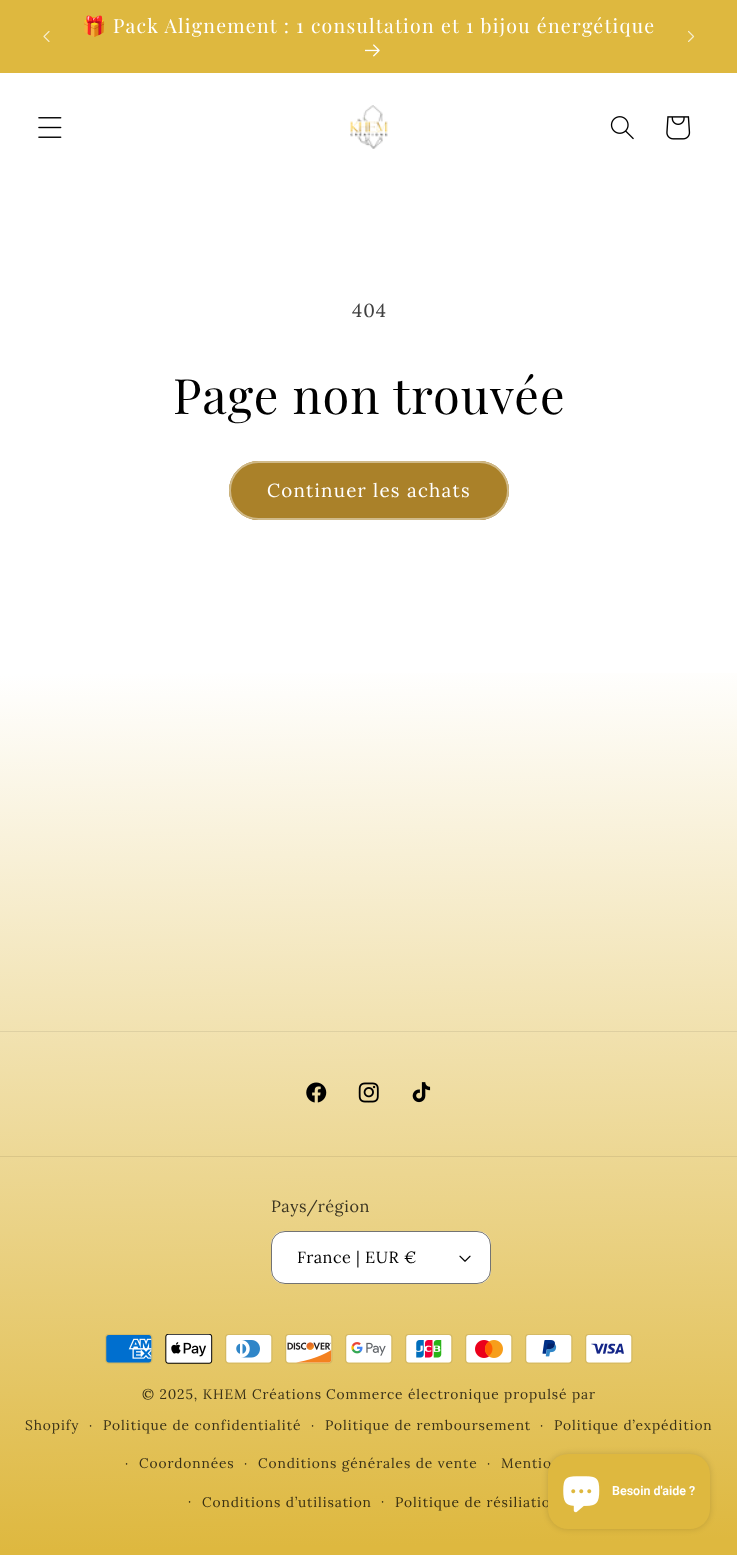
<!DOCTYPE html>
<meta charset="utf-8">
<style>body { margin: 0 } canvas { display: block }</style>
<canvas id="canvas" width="737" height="1555"></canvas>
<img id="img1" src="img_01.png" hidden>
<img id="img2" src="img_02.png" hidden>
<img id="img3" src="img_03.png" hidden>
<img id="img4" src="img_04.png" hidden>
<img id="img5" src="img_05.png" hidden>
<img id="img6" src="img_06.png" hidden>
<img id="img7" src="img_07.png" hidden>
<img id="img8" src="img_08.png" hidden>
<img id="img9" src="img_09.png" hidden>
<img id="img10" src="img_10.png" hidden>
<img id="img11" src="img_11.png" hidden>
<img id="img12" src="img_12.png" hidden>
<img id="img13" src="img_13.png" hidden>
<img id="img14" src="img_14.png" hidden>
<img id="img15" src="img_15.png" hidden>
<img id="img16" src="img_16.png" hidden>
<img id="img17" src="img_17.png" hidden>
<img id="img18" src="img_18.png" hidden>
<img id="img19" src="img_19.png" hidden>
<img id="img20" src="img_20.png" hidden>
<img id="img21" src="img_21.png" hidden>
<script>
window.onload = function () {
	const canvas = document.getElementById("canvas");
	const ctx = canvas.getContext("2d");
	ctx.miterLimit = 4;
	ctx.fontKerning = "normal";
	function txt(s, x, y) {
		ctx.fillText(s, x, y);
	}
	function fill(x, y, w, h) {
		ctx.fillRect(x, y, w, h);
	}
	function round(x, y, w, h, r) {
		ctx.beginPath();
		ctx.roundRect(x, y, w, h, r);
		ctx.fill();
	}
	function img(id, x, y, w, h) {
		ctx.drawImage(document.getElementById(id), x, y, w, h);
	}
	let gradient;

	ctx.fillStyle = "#FFFFFF";
	fill(0, 0, 737, 1555);
	gradient = ctx.createLinearGradient(355, -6.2, 382, 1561);
	gradient.addColorStop(0.43, "#FFFFFF");
	gradient.addColorStop(0.99, "#DEB83F");
	ctx.fillStyle = gradient;
	fill(0, 673, 737, 882);
	gradient = ctx.createLinearGradient(355, -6.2, 382, 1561);
	gradient.addColorStop(0.43, "#EBEBEB");
	gradient.addColorStop(0.99, "#CCA93A");
	ctx.fillStyle = gradient;
	fill(0, 1031, 737, 1);
	ctx.fillStyle = "#DEB83F";
	fill(0, 0, 737, 73);
	img("img1", 43, 31, 7, 11);
	img("img2", 365, 44, 15, 13);
	img("img3", 688, 30, 7, 12);
	img("img4", 38, 117, 24, 21);
	img("img5", 350, 105, 38, 44);
	img("img6", 610, 116, 24, 24);
	img("img7", 666, 116, 25, 24);
	ctx.fillStyle = "#AA8129";
	round(229, 461, 280, 59, 29.5);
	ctx.beginPath();
	ctx.roundRect(229.5, 461.5, 279, 58, 29);
	ctx.strokeStyle = "#AA8129";
	ctx.stroke();
	ctx.beginPath();
	ctx.roundRect(230, 462, 278, 57, 28.5);
	ctx.strokeStyle = "rgba(255, 255, 255, 0.45)";
	ctx.lineWidth = 2;
	ctx.stroke();
	img("img8", 306, 1082, 21, 21);
	img("img9", 358, 1082, 21, 21);
	img("img10", 412, 1082, 19, 21);
	ctx.fillStyle = "#DAC688";
	fill(0, 1156, 737, 1);
	ctx.fillStyle = "#FFFFFF";
	round(271, 1231, 220, 53, 14);
	img("img11", 459, 1255, 12, 7);
	ctx.beginPath();
	ctx.roundRect(271.5, 1231.5, 219, 52, 13.5);
	ctx.strokeStyle = "rgba(0, 0, 0, 0.55)";
	ctx.lineWidth = 1;
	ctx.stroke();
	img("img12", 105, 1334, 48, 30);
	img("img13", 165, 1334, 48, 30);
	img("img14", 225, 1334, 48, 30);
	img("img15", 285, 1334, 48, 30);
	img("img16", 345, 1334, 48, 30);
	img("img17", 405, 1334, 48, 30);
	img("img18", 465, 1334, 48, 30);
	img("img19", 525, 1334, 48, 30);
	img("img20", 585, 1334, 48, 30);
	ctx.fillStyle = "rgba(0, 0, 0, 0.15)";
	ctx.filter = "blur(3px)";
	ctx.beginPath();
	ctx.roundRect(548, 1454, 162, 75, 20);
	ctx.fill();
	ctx.filter = "none";
	ctx.letterSpacing = "1.25px";
	ctx.font = "19.5px Noto Color Emoji";
	ctx.fillStyle = "#FFFFFF";
	txt("🎁", 82, 33);
	ctx.font = "19.5px Playfair Display";
	txt("Pack Alignement : 1 consultation et 1 bijou énergétique", 113, 33);
	ctx.letterSpacing = "1px";
	ctx.font = "18.75px Lora";
	ctx.fillStyle = "#404040";
	txt("404", 352, 317);
	ctx.font = "48.75px Playfair Display";
	ctx.fillStyle = "#000000";
	txt("Page non trouvée", 173, 414);
	ctx.letterSpacing = "1.25px";
	ctx.font = "18.75px Lora";
	ctx.fillStyle = "#FFFFFF";
	txt("Continuer les achats", 267, 497);
	ctx.letterSpacing = "0.5px";
	ctx.font = "16.25px Lora";
	ctx.fillStyle = "#3B3522";
	txt("Pays/région", 271, 1212);
	ctx.fillStyle = "#000000";
	txt("France | EUR €", 297, 1263);
	ctx.letterSpacing = "0.9px";
	ctx.font = "13.75px Lora";
	ctx.fillStyle = "#393118";
	txt("© 2025, KHEM Créations", 142, 1399);
	txt("Commerce électronique propulsé par", 326, 1399);
	txt("Shopify", 25, 1430);
	ctx.font = "12.5px Lora";
	txt("·", 89, 1430);
	ctx.font = "13.75px Lora";
	txt("Politique de confidentialité", 103, 1430);
	ctx.font = "12.5px Lora";
	txt("·", 311, 1430);
	ctx.font = "13.75px Lora";
	txt("Politique de remboursement", 325, 1430);
	ctx.font = "12.5px Lora";
	txt("·", 540, 1430);
	ctx.font = "13.75px Lora";
	txt("Politique d’expédition", 554, 1430);
	ctx.font = "12.5px Lora";
	txt("·", 125, 1468);
	ctx.font = "13.75px Lora";
	txt("Coordonnées", 139, 1468);
	ctx.font = "12.5px Lora";
	txt("·", 244, 1468);
	ctx.font = "13.75px Lora";
	txt("Conditions générales de vente", 258, 1468);
	ctx.font = "12.5px Lora";
	txt("·", 487, 1468);
	ctx.font = "13.75px Lora";
	txt("Mentio", 501, 1468);
	ctx.font = "12.5px Lora";
	ctx.fillStyle = "#382F12";
	txt("·", 188, 1506);
	ctx.font = "13.75px Lora";
	txt("Conditions d’utilisation", 202, 1507);
	ctx.font = "12.5px Lora";
	txt("·", 381, 1506);
	ctx.font = "13.75px Lora";
	txt("Politique de résiliatio", 395, 1507);
	ctx.fillStyle = "#DEB83F";
	round(548, 1454, 162, 75, 20);
	img("img21", 563, 1476, 37, 37);
	ctx.letterSpacing = "0px";
	ctx.font = "600 12.5px Roboto";
	ctx.fillStyle = "#FFFFFF";
	txt("Besoin d'aide ?", 612, 1495);
};
</script>
